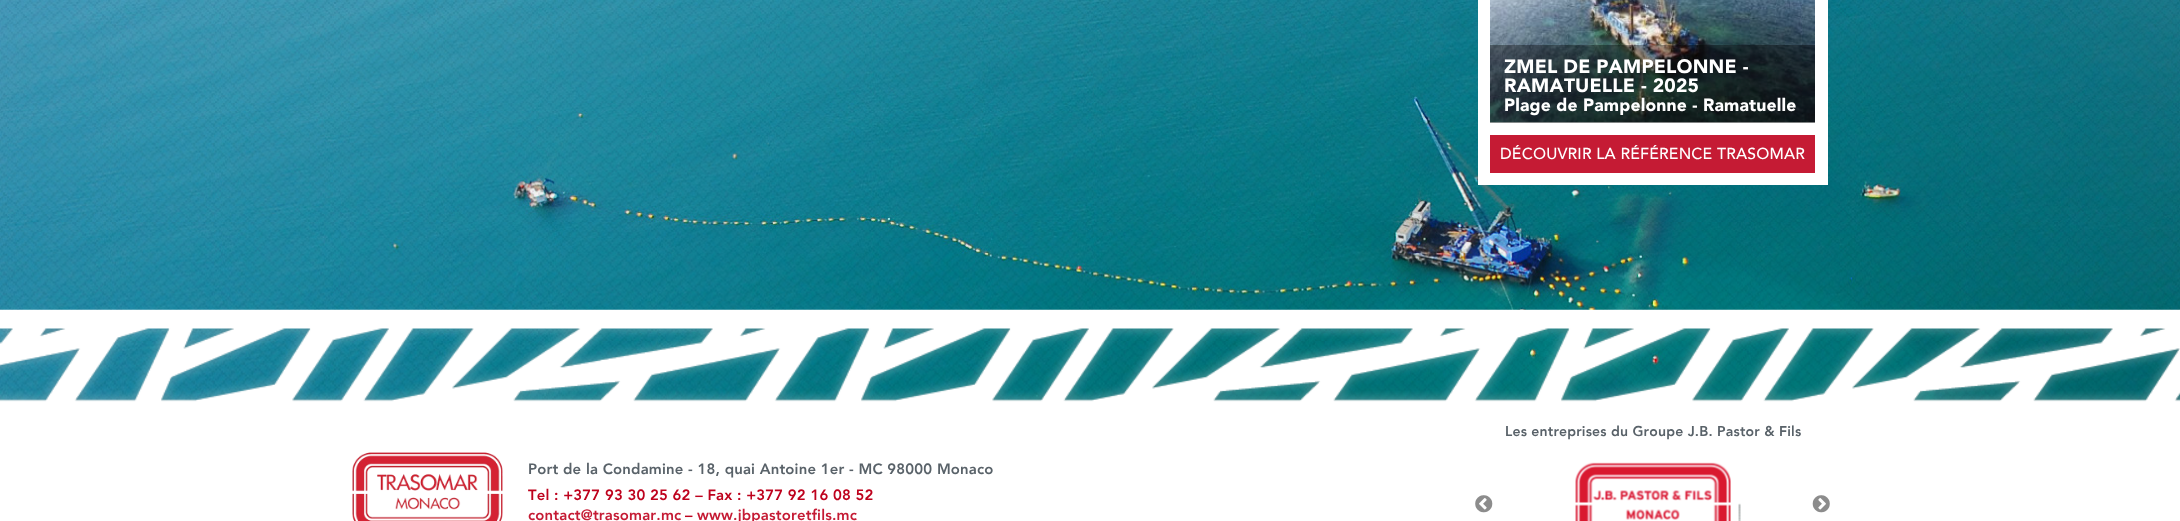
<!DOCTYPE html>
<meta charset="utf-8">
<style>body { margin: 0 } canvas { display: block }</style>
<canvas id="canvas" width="2180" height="521"></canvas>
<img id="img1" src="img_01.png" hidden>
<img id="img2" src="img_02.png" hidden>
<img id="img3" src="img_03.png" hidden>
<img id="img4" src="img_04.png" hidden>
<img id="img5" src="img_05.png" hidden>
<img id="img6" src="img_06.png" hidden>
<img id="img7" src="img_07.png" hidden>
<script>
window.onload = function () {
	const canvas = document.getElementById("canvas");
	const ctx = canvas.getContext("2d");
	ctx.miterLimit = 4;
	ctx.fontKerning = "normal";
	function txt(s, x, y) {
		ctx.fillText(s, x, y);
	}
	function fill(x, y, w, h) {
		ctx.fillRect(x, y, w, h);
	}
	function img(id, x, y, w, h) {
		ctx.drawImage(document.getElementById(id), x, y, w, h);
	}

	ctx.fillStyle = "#FFFFFF";
	fill(0, 0, 2180, 521);
	img("img1", 0, 0, 2180, 402);
	fill(1478, 0, 350, 185);
	img("img2", 1490, 0, 325, 123);
	ctx.fillStyle = "rgba(0, 0, 0, 0.35)";
	fill(1490, 45, 325, 78);
	ctx.fillStyle = "#C51B34";
	fill(1490, 135, 325, 38);
	img("img3", 0, 309, 2180, 212);
	img("img4", 1475, 495, 18, 18);
	img("img5", 1575, 462, 166, 59);
	img("img6", 1812, 495, 18, 18);
	img("img7", 352, 452, 151, 69);
	ctx.letterSpacing = "0.18px";
	ctx.font = "900 19.25px 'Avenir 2'";
	ctx.fillStyle = "#FFFFFF";
	txt("ZMEL DE PAMPELONNE -", 1504, 73);
	txt("RAMATUELLE - 2025", 1504, 92);
	ctx.font = "900 17.5px 'Avenir 2'";
	txt("Plage de Pampelonne - Ramatuelle", 1504, 111);
	ctx.font = "500 15.75px Avenir";
	txt("DÉCOUVRIR LA RÉFÉRENCE TRASOMAR", 1500, 159);
	ctx.font = "900 14px Avenir";
	ctx.fillStyle = "#596269";
	txt("Les entreprises du Groupe J.B. Pastor & Fils", 1505, 436);
	ctx.font = "900 14.9px Avenir";
	txt("Port de la Condamine - 18, quai Antoine 1er - MC 98000 Monaco", 528, 474);
	ctx.fillStyle = "#BE021D";
	txt("Tel : +377 93 30 25 62 – Fax : +377 92 16 08 52", 528, 500);
	ctx.fillStyle = "#C51B34";
	txt("contact@trasomar.mc", 528, 520);
	ctx.fillStyle = "#BE021D";
	txt("–", 685, 520);
	ctx.fillStyle = "#C51B34";
	txt("www.jbpastoretfils.mc", 697, 520);
};
</script>
